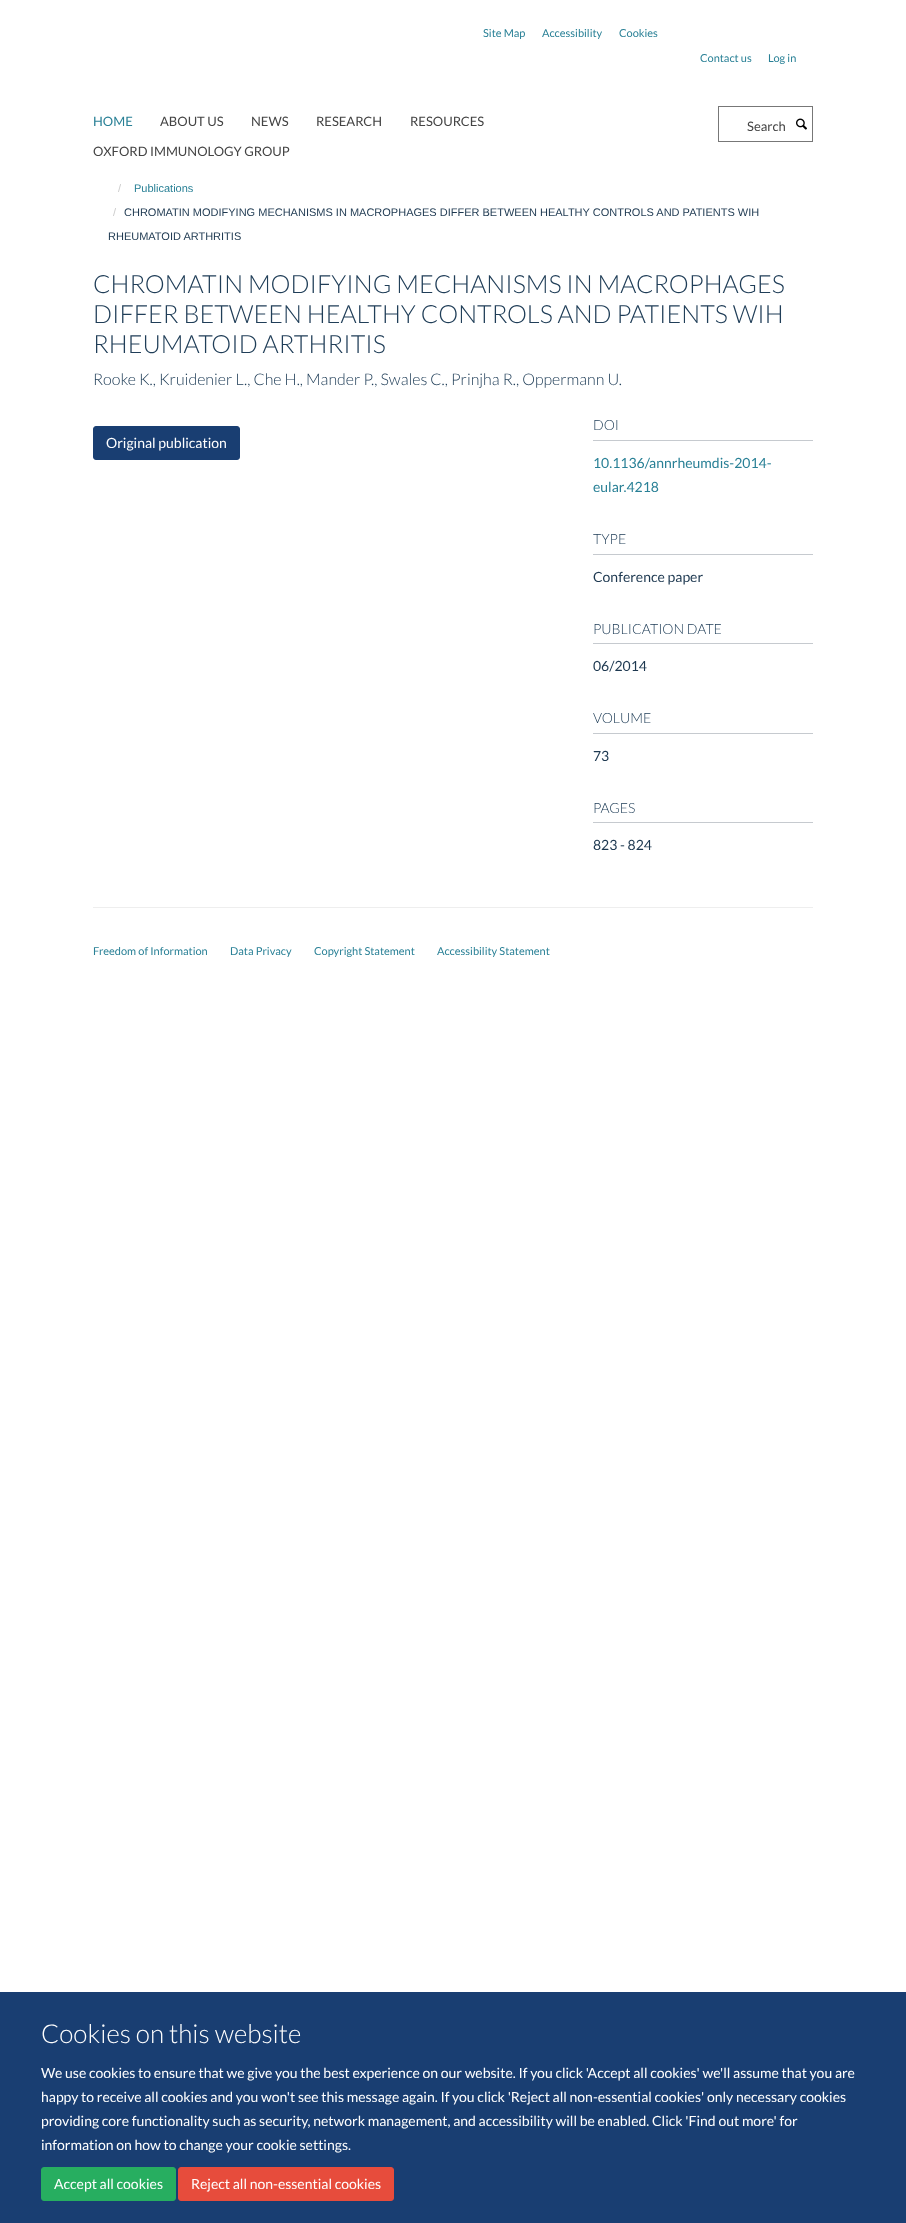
<!DOCTYPE html>
<meta charset="utf-8">
<style>body { margin: 0 } canvas { display: block }</style>
<canvas id="canvas" width="906" height="2223"></canvas>
<img id="img1" src="img_01.png" hidden>
<script>
window.onload = function () {
	const canvas = document.getElementById("canvas");
	const ctx = canvas.getContext("2d");
	ctx.miterLimit = 4;
	ctx.fontKerning = "normal";
	function txt(s, x, y) {
		ctx.fillText(s, x, y);
	}
	function fill(x, y, w, h) {
		ctx.fillRect(x, y, w, h);
	}
	function img(id, x, y, w, h) {
		ctx.drawImage(document.getElementById(id), x, y, w, h);
	}

	ctx.fillStyle = "#FFFFFF";
	fill(0, 0, 906, 2223);
	ctx.strokeStyle = "#777777";
	ctx.strokeRect(718.5, 106.5, 94, 35);
	img("img1", 796, 118, 11, 12);
	ctx.fillStyle = "#193E72";
	ctx.beginPath();
	ctx.roundRect(93.5, 426.5, 146, 33, 2.5);
	ctx.fill();
	ctx.strokeStyle = "#193E72";
	ctx.stroke();
	ctx.fillStyle = "#C6CACF";
	fill(593, 440, 220, 1);
	fill(593, 554, 220, 1);
	fill(593, 643, 220, 1);
	fill(593, 733, 220, 1);
	fill(593, 822, 220, 1);
	ctx.fillStyle = "#EEEEEE";
	fill(93, 907, 720, 1);
	ctx.fillStyle = "#193E72";
	fill(0, 1992, 906, 231);
	ctx.fillStyle = "#27AE60";
	ctx.beginPath();
	ctx.roundRect(41.5, 2167.5, 134, 33, 2.5);
	ctx.fill();
	ctx.strokeStyle = "#27AE60";
	ctx.stroke();
	ctx.fillStyle = "#E74C3C";
	ctx.beginPath();
	ctx.roundRect(178.5, 2167.5, 215, 33, 2.5);
	ctx.fill();
	ctx.strokeStyle = "#E74C3C";
	ctx.stroke();
	ctx.font = "11px Lato";
	ctx.fillStyle = "#298096";
	txt("Site Map", 483, 37);
	txt("Accessibility", 542, 37);
	txt("Cookies", 619, 37);
	txt("Contact us", 700, 62);
	txt("Log in", 768, 62);
	ctx.font = "13px Lato";
	txt("HOME", 93, 126);
	ctx.fillStyle = "#444444";
	txt("ABOUT US", 160, 126);
	txt("NEWS", 251, 126);
	txt("RESEARCH", 316, 126);
	txt("RESOURCES", 410, 126);
	txt("OXFORD IMMUNOLOGY GROUP", 93, 156);
	txt("Search", 747, 131);
	ctx.font = "11px Liberation Sans";
	ctx.fillStyle = "#CCCCCC";
	txt("/", 118, 192);
	ctx.fillStyle = "#298096";
	txt("Publications", 134, 192);
	ctx.fillStyle = "#CCCCCC";
	txt("/", 113, 216);
	ctx.fillStyle = "#1D3850";
	txt("CHROMATIN MODIFYING MECHANISMS IN MACROPHAGES DIFFER BETWEEN HEALTHY CONTROLS AND PATIENTS WIH", 124, 216);
	txt("RHEUMATOID ARTHRITIS", 108, 240);
	ctx.font = "300 25px Lato";
	ctx.fillStyle = "#203E58";
	txt("CHROMATIN MODIFYING MECHANISMS IN MACROPHAGES", 93, 293);
	txt("DIFFER BETWEEN HEALTHY CONTROLS AND PATIENTS WIH", 93, 323);
	txt("RHEUMATOID ARTHRITIS", 93, 353);
	ctx.font = "300 16px Lato";
	txt("Rooke K., Kruidenier L., Che H., Mander P., Swales C., Prinjha R., Oppermann U.", 93, 385);
	ctx.font = "14px Lato";
	ctx.fillStyle = "#FFFFFF";
	txt("Original publication", 106, 448);
	ctx.font = "300 14px Lato";
	ctx.fillStyle = "#203E58";
	txt("DOI", 593, 430);
	ctx.font = "14px Lato";
	ctx.fillStyle = "#298096";
	txt("10.1136/annrheumdis-2014-", 593, 468);
	txt("eular.4218", 593, 492);
	ctx.font = "300 14px Lato";
	ctx.fillStyle = "#203E58";
	txt("TYPE", 593, 544);
	ctx.font = "14px Lato";
	ctx.fillStyle = "#1D3850";
	txt("Conference paper", 593, 582);
	ctx.font = "300 14px Lato";
	ctx.fillStyle = "#203E58";
	txt("PUBLICATION DATE", 593, 634);
	ctx.font = "14px Lato";
	ctx.fillStyle = "#1D3850";
	txt("06/2014", 593, 671);
	ctx.font = "300 14px Lato";
	ctx.fillStyle = "#203E58";
	txt("VOLUME", 593, 723);
	ctx.font = "14px Lato";
	ctx.fillStyle = "#1D3850";
	txt("73", 593, 761);
	ctx.font = "300 14px Lato";
	ctx.fillStyle = "#203E58";
	txt("PAGES", 593, 813);
	ctx.font = "14px Lato";
	ctx.fillStyle = "#1D3850";
	txt("823 - 824", 593, 850);
	ctx.font = "11px Lato";
	ctx.fillStyle = "#298096";
	txt("Freedom of Information", 93, 955);
	txt("Data Privacy", 230, 955);
	txt("Copyright Statement", 314, 955);
	txt("Accessibility Statement", 437, 955);
	ctx.font = "300 26px Lato";
	ctx.fillStyle = "#FFFFFF";
	txt("Cookies on this website", 41, 2043);
	ctx.font = "14px Lato";
	txt("We use cookies to ensure that we give you the best experience on our website. If you click 'Accept all cookies' we'll assume that you are", 41, 2078);
	txt("happy to receive all cookies and you won't see this message again. If you click 'Reject all non-essential cookies' only necessary cookies", 41, 2102);
	txt("providing core functionality such as security, network management, and accessibility will be enabled. Click 'Find out more' for", 41, 2126);
	txt("information on how to change your cookie settings.", 41, 2150);
	txt("Accept all cookies", 54, 2189);
	txt("Reject all non-essential cookies", 191, 2189);
};
</script>
